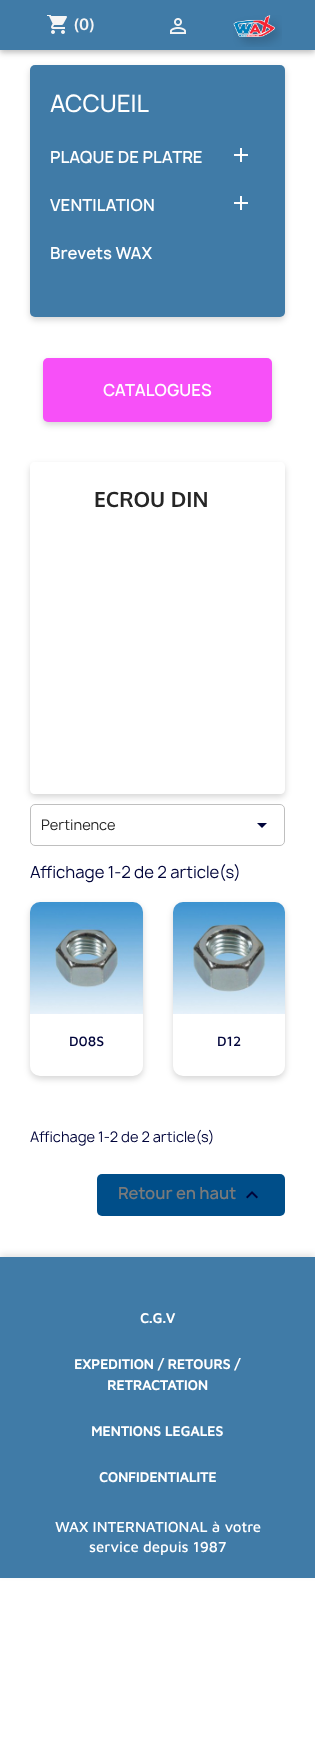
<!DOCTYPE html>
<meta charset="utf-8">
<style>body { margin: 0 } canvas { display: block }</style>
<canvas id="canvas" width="315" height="1745"></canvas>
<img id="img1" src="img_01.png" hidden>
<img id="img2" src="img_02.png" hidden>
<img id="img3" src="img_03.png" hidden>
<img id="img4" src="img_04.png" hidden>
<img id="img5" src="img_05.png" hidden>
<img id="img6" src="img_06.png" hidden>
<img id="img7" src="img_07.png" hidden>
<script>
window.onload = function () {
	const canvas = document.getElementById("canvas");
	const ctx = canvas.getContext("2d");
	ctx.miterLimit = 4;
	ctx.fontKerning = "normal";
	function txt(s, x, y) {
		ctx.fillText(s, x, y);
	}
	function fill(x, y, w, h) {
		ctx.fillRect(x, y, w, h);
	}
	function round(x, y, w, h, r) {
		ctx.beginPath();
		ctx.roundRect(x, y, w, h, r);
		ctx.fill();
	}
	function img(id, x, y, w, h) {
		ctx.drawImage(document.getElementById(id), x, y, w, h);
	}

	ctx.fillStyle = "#FFFFFF";
	fill(0, 0, 315, 1745);
	ctx.fillStyle = "rgba(0, 0, 0, 0.11)";
	ctx.filter = "blur(2.5px)";
	ctx.beginPath();
	ctx.rect(0, 2, 315, 50);
	ctx.fill();
	ctx.filter = "none";
	ctx.fillStyle = "rgba(0, 0, 0, 0.16)";
	ctx.filter = "blur(3px)";
	ctx.beginPath();
	ctx.rect(0, -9, 315, 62);
	ctx.fill();
	ctx.filter = "none";
	ctx.fillStyle = "#407BA7";
	fill(0, 0, 315, 50);
	img("img1", 47, 15, 20, 19);
	img("img2", 170, 18, 16, 16);
	img("img3", 233, 15, 49, 32);
	ctx.fillStyle = "rgba(0, 0, 0, 0.16)";
	ctx.filter = "blur(3px)";
	ctx.beginPath();
	ctx.roundRect(30, 68, 255, 252, 5);
	ctx.fill();
	ctx.filter = "none";
	ctx.fillStyle = "#407BA7";
	round(30, 65, 255, 252, 5);
	img("img4", 234, 148, 14, 14);
	img("img4", 234, 196, 14, 14);
	ctx.fillStyle = "rgba(0, 0, 0, 0.16)";
	ctx.filter = "blur(3px)";
	ctx.beginPath();
	ctx.roundRect(43, 361, 229, 64, 5);
	ctx.fill();
	ctx.filter = "none";
	ctx.fillStyle = "#F750F8";
	round(43, 358, 229, 64, 5);
	ctx.save();
	ctx.beginPath();
	ctx.moveTo(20, 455);
	ctx.lineTo(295, 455);
	ctx.lineTo(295, 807);
	ctx.lineTo(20, 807);
	ctx.closePath();
	ctx.moveTo(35, 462);
	ctx.lineTo(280, 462);
	ctx.bezierCurveTo(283, 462, 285, 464, 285, 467);
	ctx.lineTo(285, 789);
	ctx.bezierCurveTo(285, 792, 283, 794, 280, 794);
	ctx.lineTo(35, 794);
	ctx.bezierCurveTo(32, 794, 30, 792, 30, 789);
	ctx.lineTo(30, 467);
	ctx.bezierCurveTo(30, 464, 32, 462, 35, 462);
	ctx.closePath();
	ctx.clip("evenodd");
	ctx.fillStyle = "rgba(0, 0, 0, 0.16)";
	ctx.filter = "blur(3px)";
	ctx.beginPath();
	ctx.roundRect(30, 465, 255, 332, 5);
	ctx.fill();
	ctx.filter = "none";
	ctx.restore();
	ctx.beginPath();
	ctx.roundRect(30.5, 804.5, 254, 41, 4.5);
	ctx.strokeStyle = "#BFBFBF";
	ctx.stroke();
	ctx.fillStyle = "#00043A";
	ctx.beginPath();
	ctx.moveTo(257, 823);
	ctx.lineTo(267, 823);
	ctx.lineTo(262, 828);
	ctx.closePath();
	ctx.fill();
	ctx.fillStyle = "rgba(0, 0, 0, 0.16)";
	ctx.filter = "blur(3px)";
	ctx.beginPath();
	ctx.roundRect(30, 905, 113, 174, 10);
	ctx.fill();
	ctx.filter = "none";
	ctx.fillStyle = "#F9F9F9";
	ctx.beginPath();
	ctx.roundRect(30, 902, 113, 112, [10, 10, 0, 0]);
	ctx.fill();
	img("img5", 30, 902, 113, 112);
	ctx.fillStyle = "#FFFFFF";
	ctx.beginPath();
	ctx.roundRect(30, 1014, 113, 62, [0, 0, 10, 10]);
	ctx.fill();
	ctx.fillStyle = "rgba(0, 0, 0, 0.16)";
	ctx.filter = "blur(3px)";
	ctx.beginPath();
	ctx.roundRect(173, 905, 112, 174, 10);
	ctx.fill();
	ctx.filter = "none";
	ctx.fillStyle = "#F9F9F9";
	ctx.beginPath();
	ctx.roundRect(173, 902, 112, 112, [10, 10, 0, 0]);
	ctx.fill();
	img("img6", 173, 902, 112, 112);
	ctx.fillStyle = "#FFFFFF";
	ctx.beginPath();
	ctx.roundRect(173, 1014, 112, 62, [0, 0, 10, 10]);
	ctx.fill();
	ctx.fillStyle = "#004E89";
	round(97, 1174, 188, 42, 5);
	img("img7", 246, 1191, 12, 8);
	ctx.fillStyle = "rgba(0, 0, 0, 0.1)";
	ctx.filter = "blur(3px)";
	ctx.beginPath();
	ctx.rect(0, 1254, 315, 321);
	ctx.fill();
	ctx.filter = "none";
	ctx.fillStyle = "#407BA7";
	fill(0, 1257, 315, 321);
	ctx.font = "bold 16px Oxygen";
	ctx.fillStyle = "#F5F5F5";
	txt("(0)", 74, 30);
	ctx.font = "500 24px Manrope";
	ctx.fillStyle = "#FFFFFF";
	txt("ACCUEIL", 50, 112);
	ctx.font = "600 16px Manrope";
	txt("PLAQUE DE PLATRE", 50, 163);
	txt("VENTILATION", 50, 211);
	txt("Brevets WAX", 50, 259);
	txt("CATALOGUES", 103, 396);
	ctx.font = "bold 21px Oxygen";
	ctx.fillStyle = "#252525";
	txt("ECROU DIN", 94, 507);
	ctx.font = "14px Manrope";
	txt("Pertinence", 41, 830);
	ctx.font = "16px Manrope";
	ctx.fillStyle = "#00043A";
	txt("Affichage 1-2 de 2 article(s)", 30, 878);
	ctx.font = "500 14px Maven Pro";
	txt("D08S", 69, 1046);
	txt("D12", 217, 1046);
	ctx.font = "14px Manrope";
	txt("Affichage 1-2 de 2 article(s)", 30, 1142);
	ctx.font = "600 16px Manrope";
	ctx.fillStyle = "#7A7A7A";
	txt("Retour en haut", 118, 1199);
	ctx.font = "bold 14px Maven Pro";
	ctx.fillStyle = "#FFFFFF";
	txt("C.G.V", 140, 1323);
	txt("EXPEDITION / RETOURS /", 74, 1369);
	txt("RETRACTATION", 107, 1390);
	txt("MENTIONS LEGALES", 91, 1436);
	txt("CONFIDENTIALITE", 99, 1482);
	ctx.font = "500 15px Maven Pro";
	txt("WAX INTERNATIONAL à votre", 55, 1532);
	txt("service depuis 1987", 89, 1552);
};
</script>
